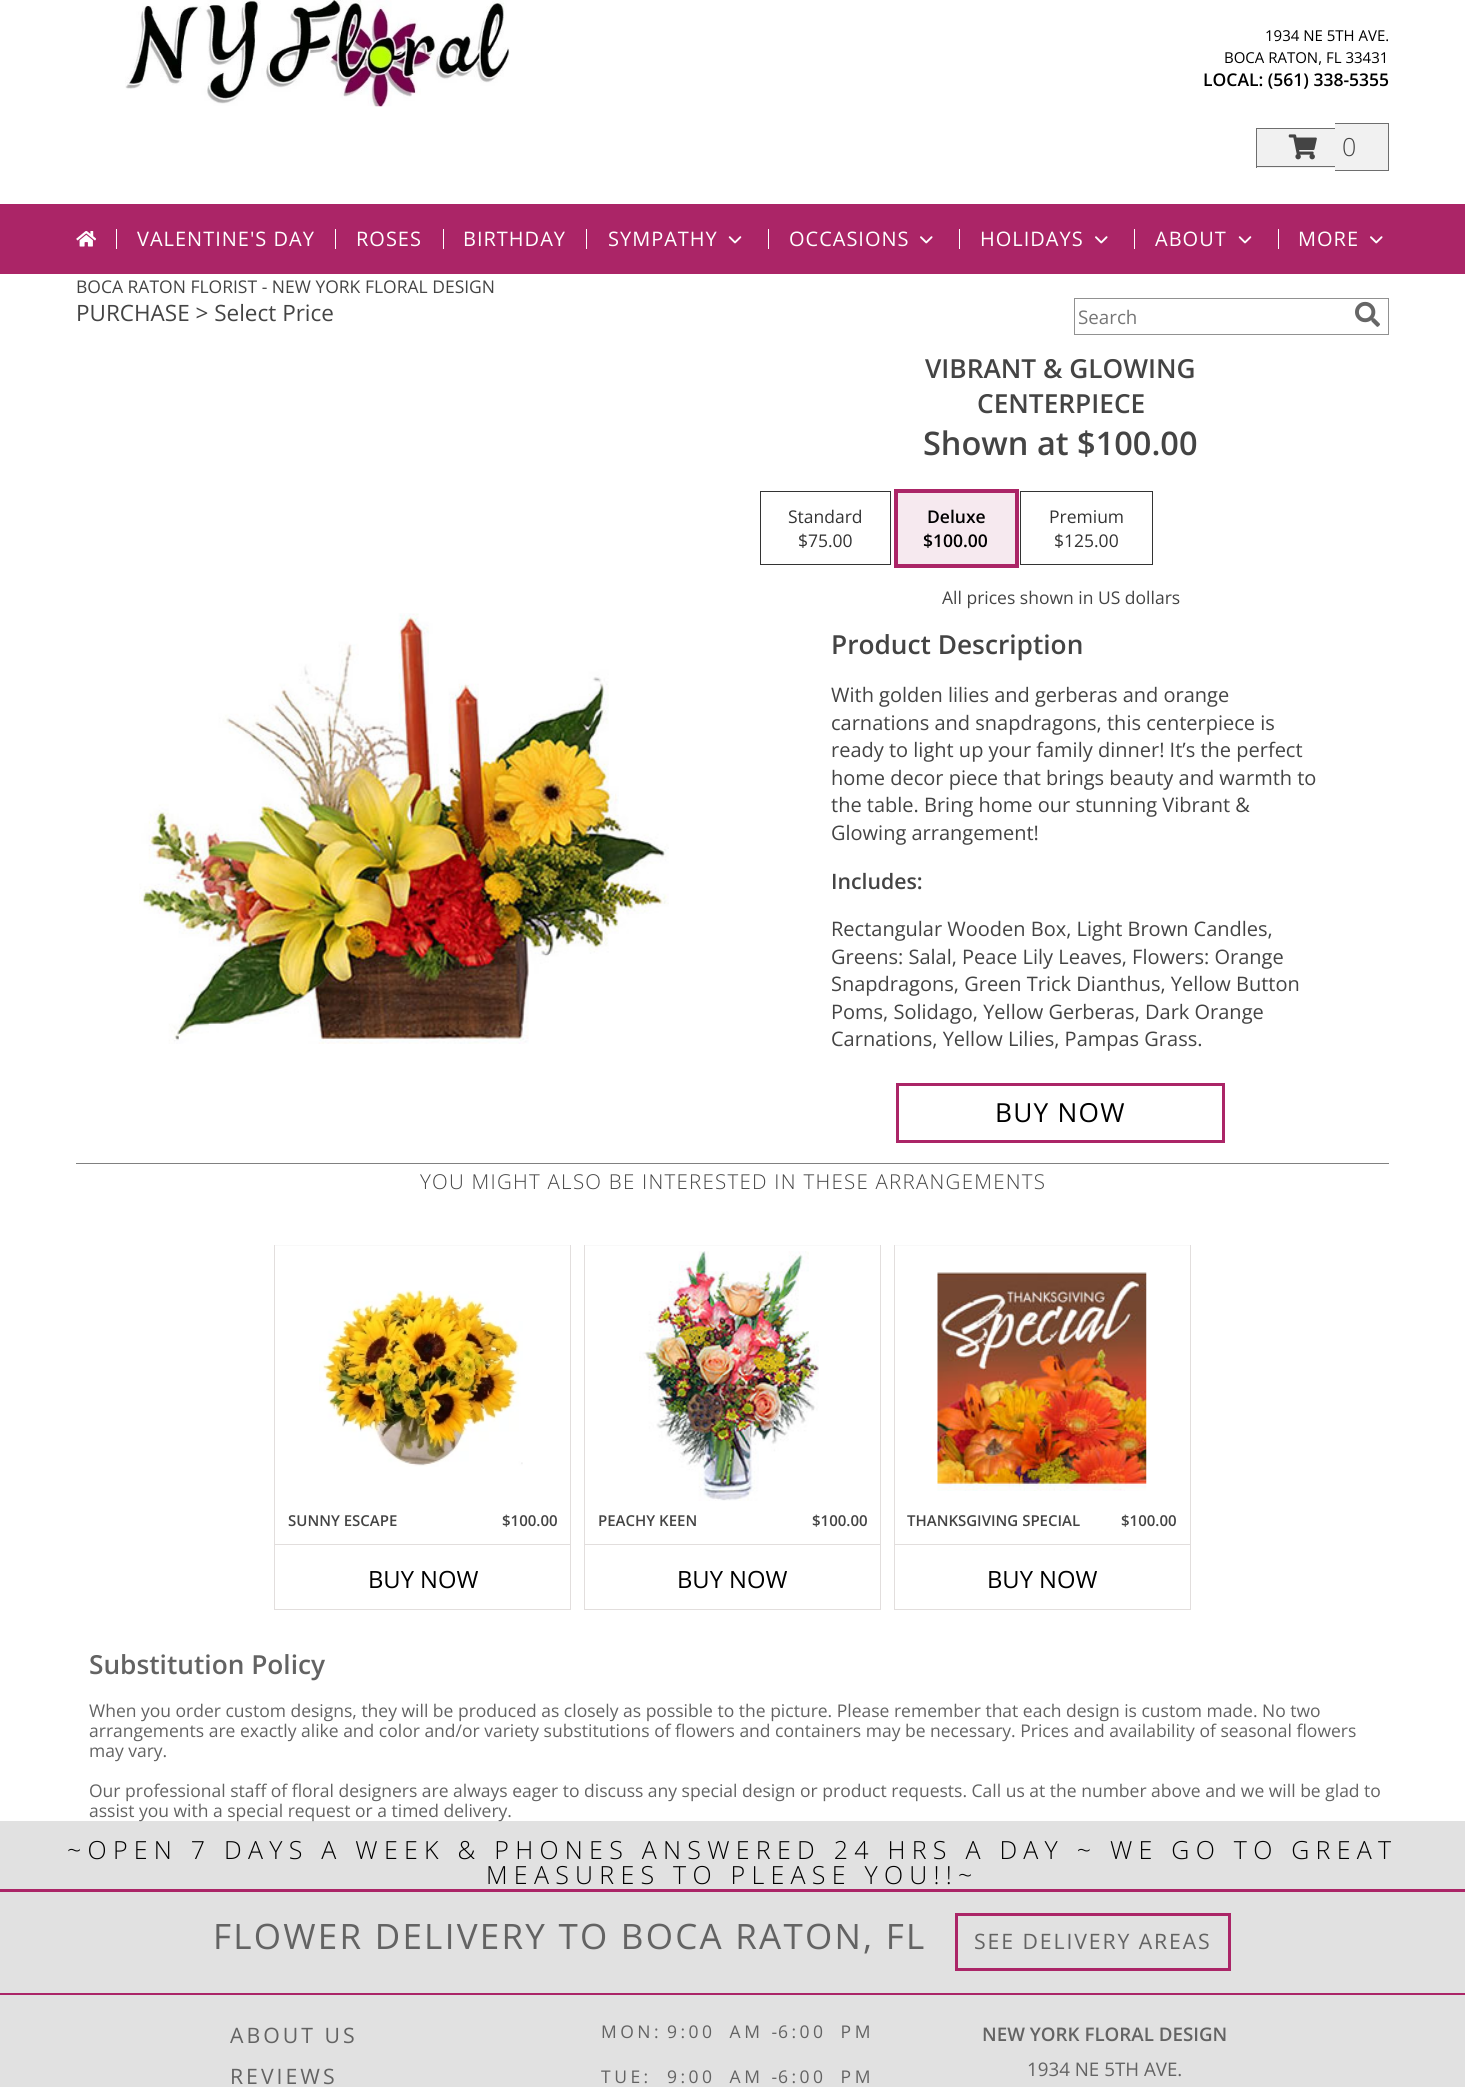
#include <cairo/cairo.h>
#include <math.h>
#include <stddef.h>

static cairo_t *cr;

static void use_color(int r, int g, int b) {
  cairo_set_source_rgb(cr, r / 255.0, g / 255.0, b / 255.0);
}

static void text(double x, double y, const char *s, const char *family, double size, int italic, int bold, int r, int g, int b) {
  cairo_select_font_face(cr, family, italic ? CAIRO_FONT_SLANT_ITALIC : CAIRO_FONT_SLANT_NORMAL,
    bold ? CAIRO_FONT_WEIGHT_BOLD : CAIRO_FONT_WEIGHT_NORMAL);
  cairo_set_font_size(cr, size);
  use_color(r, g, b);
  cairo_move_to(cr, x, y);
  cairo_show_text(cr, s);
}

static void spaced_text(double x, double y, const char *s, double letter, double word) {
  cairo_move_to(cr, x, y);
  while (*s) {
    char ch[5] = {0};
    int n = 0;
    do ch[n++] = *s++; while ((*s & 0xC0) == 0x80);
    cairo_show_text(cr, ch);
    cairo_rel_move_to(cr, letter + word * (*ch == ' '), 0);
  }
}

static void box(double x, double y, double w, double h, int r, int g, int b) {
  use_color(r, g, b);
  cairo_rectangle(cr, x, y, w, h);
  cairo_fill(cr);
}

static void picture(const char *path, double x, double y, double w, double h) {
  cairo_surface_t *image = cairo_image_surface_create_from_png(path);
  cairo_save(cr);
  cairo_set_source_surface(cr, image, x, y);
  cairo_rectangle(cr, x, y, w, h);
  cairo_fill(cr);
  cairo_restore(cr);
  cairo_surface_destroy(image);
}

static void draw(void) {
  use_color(255, 255, 255);
  cairo_paint(cr);
  picture("img_01.png", 125, 0, 385, 107);
  box(1257, 129, 78, 39, 241, 241, 241);
  box(1256, 128, 79, 1, 110, 110, 110);
  box(1256, 166, 79, 1, 110, 110, 110);
  box(1256, 128, 1, 40, 110, 110, 110);
  box(1335, 123, 8, 48, 241, 241, 241);
  box(1335, 123, 54, 1, 110, 110, 110);
  box(1335, 170, 8, 1, 110, 110, 110);
  box(1343, 124, 45, 46, 241, 241, 241);
  box(1388, 123, 1, 48, 110, 110, 110);
  box(1343, 170, 46, 1, 110, 110, 110);
  picture("img_02.png", 1288, 134, 29, 26);
  box(0, 204, 1465, 70, 171, 37, 103);
  picture("img_03.png", 76, 231, 20, 16);
  box(116, 229, 1, 20, 255, 255, 255);
  box(335, 229, 1, 20, 255, 255, 255);
  box(443, 229, 1, 20, 255, 255, 255);
  box(586, 229, 1, 20, 255, 255, 255);
  picture("img_04.png", 728, 236, 14, 8);
  box(768, 229, 1, 20, 255, 255, 255);
  picture("img_05.png", 920, 236, 13, 8);
  box(959, 229, 1, 20, 255, 255, 255);
  picture("img_05.png", 1095, 236, 13, 8);
  box(1134, 229, 1, 20, 255, 255, 255);
  picture("img_04.png", 1238, 236, 14, 8);
  box(1278, 229, 1, 20, 255, 255, 255);
  picture("img_05.png", 1370, 236, 13, 8);
  cairo_rectangle(cr, 1074.5, 298.5, 314, 36);
  use_color(145, 145, 145);
  cairo_set_line_width(cr, 1);
  cairo_stroke(cr);
  picture("img_06.png", 1355, 301, 25, 26);
  picture("img_07.png", 139, 613, 530, 431);
  cairo_rectangle(cr, 760.5, 491.5, 130, 73);
  use_color(51, 51, 51);
  cairo_stroke(cr);
  cairo_rectangle(cr, 896, 491, 121, 75);
  use_color(171, 37, 103);
  cairo_set_line_width(cr, 4);
  cairo_stroke(cr);
  box(898, 493, 117, 71, 246, 233, 239);
  cairo_rectangle(cr, 1020.5, 491.5, 132, 73);
  use_color(51, 51, 51);
  cairo_set_line_width(cr, 1);
  cairo_stroke(cr);
  cairo_rectangle(cr, 897.5, 1084.5, 326, 57);
  use_color(171, 37, 103);
  cairo_set_line_width(cr, 3);
  cairo_stroke(cr);
  box(76, 1163, 1313, 1, 128, 128, 128);
  box(274, 1245, 297, 1, 249, 249, 249);
  box(570, 1245, 1, 365, 226, 222, 221);
  box(274, 1609, 297, 1, 226, 222, 221);
  box(274, 1245, 1, 365, 226, 222, 221);
  picture("img_08.png", 319, 1290, 204, 177);
  box(275, 1544, 295, 1, 226, 222, 221);
  box(584, 1245, 297, 1, 249, 249, 249);
  box(880, 1245, 1, 365, 226, 222, 221);
  box(584, 1609, 297, 1, 226, 222, 221);
  box(584, 1245, 1, 365, 226, 222, 221);
  picture("img_09.png", 639, 1251, 180, 250);
  box(585, 1544, 295, 1, 226, 222, 221);
  box(894, 1245, 297, 1, 249, 249, 249);
  box(1190, 1245, 1, 365, 226, 222, 221);
  box(894, 1609, 297, 1, 226, 222, 221);
  box(894, 1245, 1, 365, 226, 222, 221);
  picture("img_10.png", 937, 1272, 210, 219);
  box(895, 1544, 295, 1, 226, 222, 221);
  box(0, 1821, 1465, 172, 225, 225, 225);
  box(0, 1889, 1465, 3, 171, 37, 103);
  box(0, 1993, 1465, 2, 171, 37, 103);
  cairo_rectangle(cr, 956.5, 1914.5, 273, 55);
  cairo_stroke(cr);
  box(0, 1995, 1465, 92, 225, 225, 225);
  text(1265, 41, "1934 NE 5TH AVE.", "Open Sans", 15, 0, 0, 0, 0, 0);
  text(1224, 63, "BOCA RATON, FL 33431", "Open Sans", 15, 0, 0, 0, 0, 0);
  text(1203, 86, "LOCAL: (561) 338-5355", "Open Sans SemiBold", 17.5, 0, 0, 0, 0, 0);
  text(1342, 156, "0", "Open Sans Light", 25, 0, 0, 68, 68, 68);
  cairo_select_font_face(cr, "Open Sans", CAIRO_FONT_SLANT_NORMAL, CAIRO_FONT_WEIGHT_NORMAL);
  cairo_set_font_size(cr, 20);
  use_color(255, 255, 255);
  spaced_text(137, 246, "VALENTINE'S DAY", 1, 0);
  spaced_text(356, 246, "ROSES", 1, 0);
  spaced_text(463, 246, "BIRTHDAY", 1, 0);
  spaced_text(608, 246, "SYMPATHY", 1, 0);
  spaced_text(789, 246, "OCCASIONS", 1, 0);
  spaced_text(980, 246, "HOLIDAYS", 1, 0);
  spaced_text(1155, 246, "ABOUT", 1, 0);
  spaced_text(1298, 246, "MORE", 1, 0);
  text(76, 293, "BOCA RATON FLORIST - NEW YORK FLORAL DESIGN", "Open Sans", 17.5, 0, 0, 68, 68, 68);
  text(76, 321, "PURCHASE > Select Price", "Open Sans", 22.5, 0, 0, 68, 68, 68);
  text(1078, 324, "Search", "Open Sans", 18.75, 0, 0, 117, 117, 117);
  text(925, 378, "VIBRANT & GLOWING", "Open Sans SemiBold", 26.25, 0, 0, 68, 68, 68);
  text(977, 413, "CENTERPIECE", "Open Sans SemiBold", 26.25, 0, 0, 68, 68, 68);
  text(923, 455, "Shown at $100.00", "Open Sans SemiBold", 32.5, 0, 0, 68, 68, 68);
  text(788, 523, "Standard", "Open Sans", 17.5, 0, 0, 51, 51, 51);
  text(798, 547, "$75.00", "Open Sans", 17.5, 0, 0, 51, 51, 51);
  text(927, 523, "Deluxe", "Open Sans SemiBold", 17.5, 0, 0, 0, 0, 0);
  text(923, 547, "$100.00", "Open Sans SemiBold", 17.5, 0, 0, 0, 0, 0);
  text(1049, 523, "Premium", "Open Sans", 17.5, 0, 0, 51, 51, 51);
  text(1054, 547, "$125.00", "Open Sans", 17.5, 0, 0, 51, 51, 51);
  text(942, 604, "All prices shown in US dollars", "Open Sans", 17.5, 0, 0, 68, 68, 68);
  text(831, 654, "Product Description", "Open Sans SemiBold", 26.25, 0, 0, 68, 68, 68);
  text(831, 702, "With golden lilies and gerberas and orange", "Open Sans", 20, 0, 0, 68, 68, 68);
  text(831, 730, "carnations and snapdragons, this centerpiece is", "Open Sans", 20, 0, 0, 68, 68, 68);
  text(831, 757, "ready to light up your family dinner! It’s the perfect", "Open Sans", 20, 0, 0, 68, 68, 68);
  text(831, 785, "home decor piece that brings beauty and warmth to", "Open Sans", 20, 0, 0, 68, 68, 68);
  text(831, 812, "the table. Bring home our stunning Vibrant &", "Open Sans", 20, 0, 0, 68, 68, 68);
  text(831, 840, "Glowing arrangement!", "Open Sans", 20, 0, 0, 68, 68, 68);
  text(831, 889, "Includes:", "Open Sans SemiBold", 21.25, 0, 0, 68, 68, 68);
  text(831, 936, "Rectangular Wooden Box, Light Brown Candles,", "Open Sans", 20, 0, 0, 68, 68, 68);
  text(831, 964, "Greens: Salal, Peace Lily Leaves, Flowers: Orange", "Open Sans", 20, 0, 0, 68, 68, 68);
  text(831, 991, "Snapdragons, Green Trick Dianthus, Yellow Button", "Open Sans", 20, 0, 0, 68, 68, 68);
  text(831, 1019, "Poms, Solidago, Yellow Gerberas, Dark Orange", "Open Sans", 20, 0, 0, 68, 68, 68);
  text(831, 1046, "Carnations, Yellow Lilies, Pampas Grass.", "Open Sans", 20, 0, 0, 68, 68, 68);
  cairo_set_font_size(cr, 26.25);
  use_color(0, 0, 0);
  spaced_text(995, 1122, "BUY NOW", 1.25, 0);
  cairo_select_font_face(cr, "Open Sans Light", CAIRO_FONT_SLANT_NORMAL, CAIRO_FONT_WEIGHT_NORMAL);
  cairo_set_font_size(cr, 20.5);
  use_color(68, 68, 68);
  spaced_text(420, 1189, "YOU MIGHT ALSO BE INTERESTED IN THESE ARRANGEMENTS", 1.25, 0);
  text(288, 1526, "SUNNY ESCAPE", "Open Sans SemiBold", 15, 0, 0, 68, 68, 68);
  text(502, 1526, "$100.00", "Open Sans SemiBold", 15, 0, 0, 68, 68, 68);
  text(368, 1588, "BUY NOW", "Open Sans", 23.75, 0, 0, 0, 0, 0);
  text(598, 1526, "PEACHY KEEN", "Open Sans SemiBold", 15, 0, 0, 68, 68, 68);
  text(812, 1526, "$100.00", "Open Sans SemiBold", 15, 0, 0, 68, 68, 68);
  text(677, 1588, "BUY NOW", "Open Sans", 23.75, 0, 0, 0, 0, 0);
  text(907, 1526, "THANKSGIVING SPECIAL", "Open Sans SemiBold", 15, 0, 0, 68, 68, 68);
  text(1121, 1526, "$100.00", "Open Sans SemiBold", 15, 0, 0, 68, 68, 68);
  text(987, 1588, "BUY NOW", "Open Sans", 23.75, 0, 0, 0, 0, 0);
  text(89, 1674, "Substitution Policy", "Open Sans SemiBold", 26.25, 0, 0, 99, 99, 99);
  text(89, 1717, "When you order custom designs, they will be produced as closely as possible to the picture. Please remember that each design is custom made. No two", "Open Sans", 17.5, 0, 0, 99, 99, 99);
  text(89, 1737, "arrangements are exactly alike and color and/or variety substitutions of flowers and containers may be necessary. Prices and availability of seasonal flowers", "Open Sans", 17.5, 0, 0, 99, 99, 99);
  text(89, 1757, "may vary.", "Open Sans", 17.5, 0, 0, 99, 99, 99);
  text(89, 1797, "Our professional staff of floral designers are always eager to discuss any special design or product requests. Call us at the number above and we will be glad to", "Open Sans", 17.5, 0, 0, 99, 99, 99);
  text(89, 1817, "assist you with a special request or a timed delivery.", "Open Sans", 17.5, 0, 0, 99, 99, 99);
  cairo_select_font_face(cr, "Open Sans Light", CAIRO_FONT_SLANT_NORMAL, CAIRO_FONT_WEIGHT_NORMAL);
  cairo_set_font_size(cr, 25);
  use_color(0, 0, 0);
  spaced_text(67, 1859, "~OPEN 7 DAYS A WEEK & PHONES ANSWERED 24 HRS A DAY ~ WE GO TO GREAT", 6.25, 0);
  spaced_text(486, 1884, "MEASURES TO PLEASE YOU!!~", 6.25, 0);
  cairo_select_font_face(cr, "Open Sans", CAIRO_FONT_SLANT_NORMAL, CAIRO_FONT_WEIGHT_NORMAL);
  cairo_set_font_size(cr, 35);
  use_color(99, 99, 99);
  spaced_text(213, 1949, "FLOWER DELIVERY TO BOCA RATON, FL", 2.25, 0);
  cairo_set_font_size(cr, 21.25);
  spaced_text(974, 1949, "SEE DELIVERY AREAS", 1.9, 0);
  spaced_text(230, 2043, "ABOUT US", 3, 0);
  spaced_text(230, 2084, "REVIEWS", 3, 0);
  cairo_set_font_size(cr, 17.5);
  spaced_text(601, 2038, "MON:", 3.5, 0);
  spaced_text(667, 2038, "9:00 AM -", 3.5, 0);
  spaced_text(778, 2038, "6:00 PM", 3.5, 0);
  spaced_text(601, 2083, "TUE:", 3.5, 0);
  spaced_text(667, 2083, "9:00 AM -", 3.5, 0);
  spaced_text(778, 2083, "6:00 PM", 3.5, 0);
  text(982, 2041, "NEW YORK FLORAL DESIGN", "Open Sans SemiBold", 18.75, 0, 0, 99, 99, 99);
  text(1027, 2076, "1934 NE 5TH AVE.", "Open Sans", 18.75, 0, 0, 99, 99, 99);
}

int main(void) {
  cairo_surface_t *surface = cairo_image_surface_create(CAIRO_FORMAT_RGB24, 1465, 2087);
  cr = cairo_create(surface);
  cairo_font_options_t *options = cairo_font_options_create();
  cairo_font_options_set_hint_metrics(options, CAIRO_HINT_METRICS_OFF);
  cairo_font_options_set_hint_style(options, CAIRO_HINT_STYLE_NONE);
  cairo_set_font_options(cr, options);
  cairo_set_miter_limit(cr, 4);
  draw();
  cairo_surface_write_to_png(surface, "out.png");
  cairo_font_options_destroy(options);
  cairo_destroy(cr);
  cairo_surface_destroy(surface);
  return 0;
}
